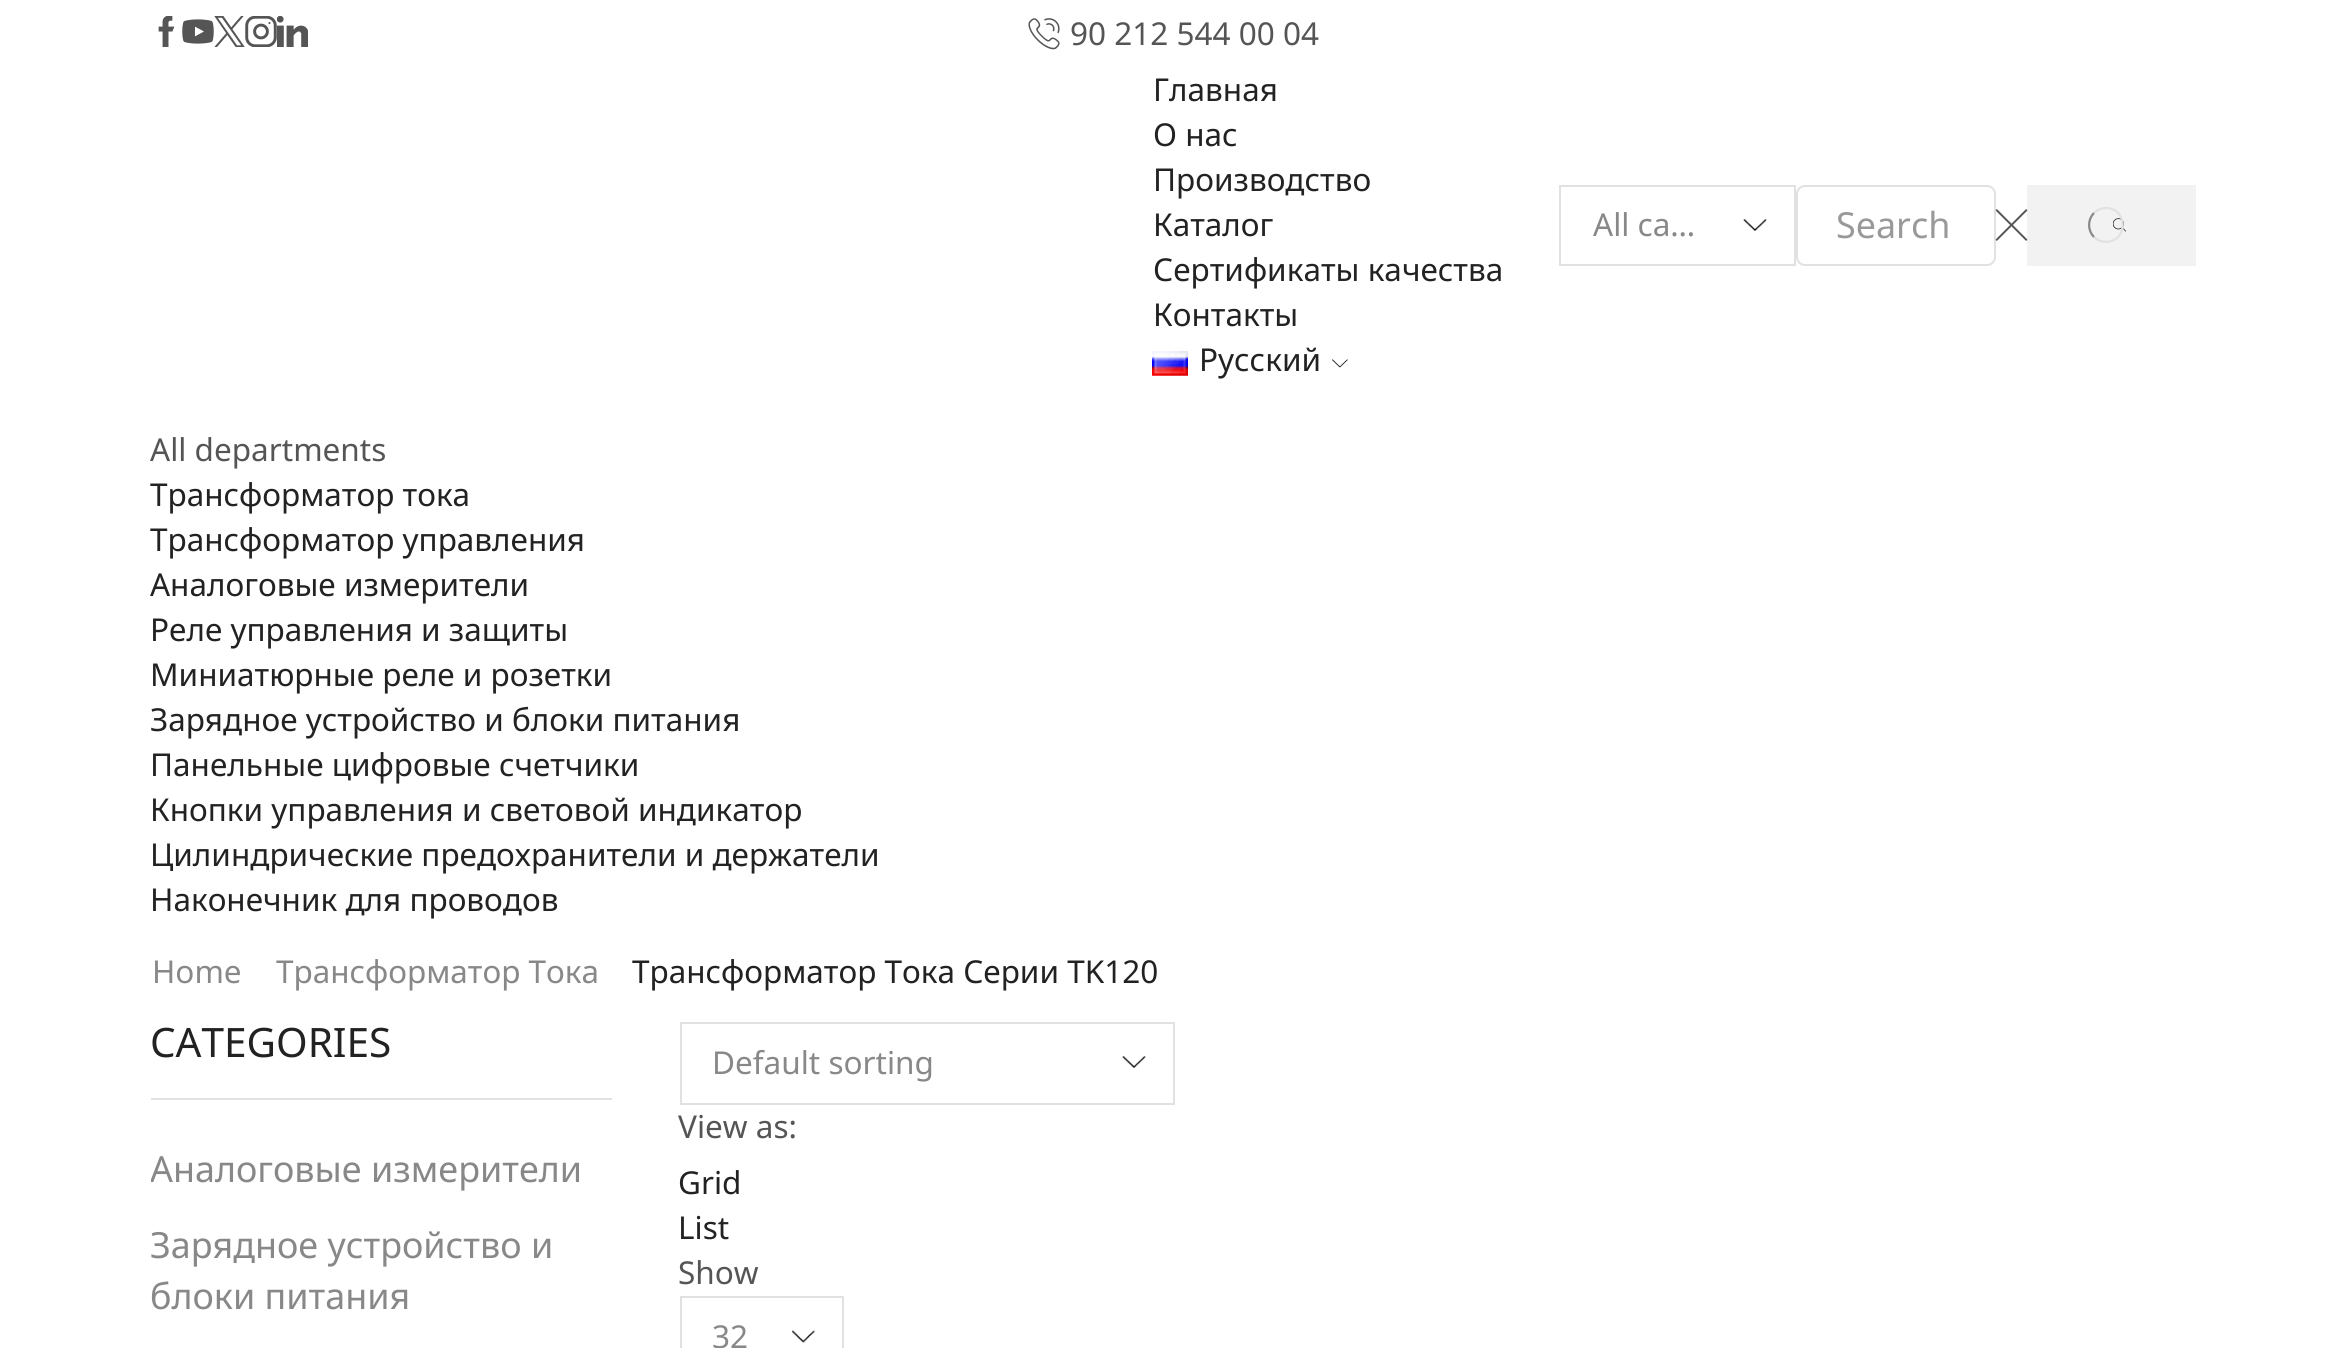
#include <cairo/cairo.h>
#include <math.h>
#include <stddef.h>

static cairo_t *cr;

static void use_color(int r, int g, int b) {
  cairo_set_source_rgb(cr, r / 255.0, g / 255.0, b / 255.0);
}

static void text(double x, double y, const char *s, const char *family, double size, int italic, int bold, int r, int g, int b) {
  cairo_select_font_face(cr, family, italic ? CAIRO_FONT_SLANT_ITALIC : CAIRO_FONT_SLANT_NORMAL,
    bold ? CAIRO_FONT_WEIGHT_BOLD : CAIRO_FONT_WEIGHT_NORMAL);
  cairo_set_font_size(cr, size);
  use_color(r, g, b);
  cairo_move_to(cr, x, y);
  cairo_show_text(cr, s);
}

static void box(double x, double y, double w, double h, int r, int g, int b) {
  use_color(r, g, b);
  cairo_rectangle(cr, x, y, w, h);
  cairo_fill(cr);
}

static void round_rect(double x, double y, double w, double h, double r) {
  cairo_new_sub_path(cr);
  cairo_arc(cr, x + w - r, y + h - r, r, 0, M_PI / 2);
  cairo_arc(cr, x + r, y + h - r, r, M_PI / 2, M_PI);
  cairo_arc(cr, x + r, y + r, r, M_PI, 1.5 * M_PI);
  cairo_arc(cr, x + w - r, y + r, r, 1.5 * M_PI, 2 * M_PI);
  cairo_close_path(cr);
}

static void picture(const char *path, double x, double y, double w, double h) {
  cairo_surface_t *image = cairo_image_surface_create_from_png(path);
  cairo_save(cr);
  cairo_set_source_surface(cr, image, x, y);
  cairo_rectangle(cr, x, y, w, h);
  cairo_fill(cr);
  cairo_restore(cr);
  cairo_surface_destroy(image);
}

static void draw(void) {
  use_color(255, 255, 255);
  cairo_paint(cr);
  picture("img_01.png", 158, 16, 17, 31);
  picture("img_02.png", 182, 19, 32, 25);
  picture("img_03.png", 214, 16, 31, 31);
  picture("img_04.png", 245, 16, 32, 31);
  picture("img_05.png", 277, 16, 31, 31);
  picture("img_06.png", 1028, 18, 32, 32);
  picture("img_07.png", 1152, 351, 36, 25);
  picture("img_08.png", 1332, 359, 16, 9);
  picture("img_09.png", 1743, 219, 24, 12);
  cairo_rectangle(cr, 1560, 186, 235, 79);
  use_color(225, 225, 225);
  cairo_stroke(cr);
  round_rect(1797, 186, 198, 79, 8);
  cairo_stroke(cr);
  box(2027, 185, 169, 81, 242, 242, 242);
  picture("img_10.png", 1995, 209, 33, 32);
  picture("img_11.png", 2113, 218, 13, 14);
  cairo_new_path(cr);
  cairo_move_to(cr, 2094, 213);
  cairo_curve_to(cr, 2097, 210, 2101.5, 208, 2106, 208);
  cairo_curve_to(cr, 2126, 208, 2129, 237.5, 2109.5, 241.5);
  cairo_curve_to(cr, 2104, 242.5, 2098, 241, 2094, 237);
  use_color(225, 225, 225);
  cairo_set_line_width(cr, 2.2);
  cairo_stroke(cr);
  cairo_new_path(cr);
  cairo_move_to(cr, 2094, 237);
  cairo_curve_to(cr, 2087.5, 230.5, 2087.5, 219.5, 2094, 213);
  use_color(136, 136, 136);
  cairo_stroke(cr);
  box(151, 1098, 461, 2, 225, 225, 225);
  picture("img_12.png", 1122, 1056, 24, 12);
  cairo_rectangle(cr, 681, 1023, 493, 81);
  cairo_set_line_width(cr, 2);
  cairo_stroke(cr);
  picture("img_13.png", 792, 1330, 23, 13);
  cairo_rectangle(cr, 681, 1297, 162, 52);
  cairo_stroke(cr);
  text(1070, 45, "90 212 544 00 04", "Noto Sans", 31.5, 0, 0, 85, 85, 85);
  text(1153, 101, "Главная", "Noto Sans", 31.5, 0, 0, 34, 34, 34);
  text(1153, 146, "О нас", "Noto Sans", 31.5, 0, 0, 34, 34, 34);
  text(1153, 191, "Производство", "Noto Sans", 31.5, 0, 0, 34, 34, 34);
  text(1153, 236, "Каталог", "Noto Sans", 31.5, 0, 0, 34, 34, 34);
  text(1153, 281, "Сертификаты качества", "Noto Sans", 31.5, 0, 0, 34, 34, 34);
  text(1153, 326, "Контакты", "Noto Sans", 31.5, 0, 0, 34, 34, 34);
  text(1199, 371, "Русский", "Noto Sans", 31.5, 0, 0, 34, 34, 34);
  text(1593, 236, "All ca…", "Noto Sans", 31.5, 0, 0, 136, 136, 136);
  text(1836, 238, "Search", "Noto Sans", 35.9, 0, 0, 153, 153, 153);
  text(150, 461, "All departments", "Noto Sans", 31.5, 0, 0, 85, 85, 85);
  text(150, 506, "Трансформатор тока", "Noto Sans", 31.5, 0, 0, 34, 34, 34);
  text(150, 551, "Трансформатор управления", "Noto Sans", 31.5, 0, 0, 34, 34, 34);
  text(150, 596, "Аналоговые измерители", "Noto Sans", 31.5, 0, 0, 34, 34, 34);
  text(150, 641, "Реле управления и защиты", "Noto Sans", 31.5, 0, 0, 34, 34, 34);
  text(150, 686, "Миниатюрные реле и розетки", "Noto Sans", 31.5, 0, 0, 34, 34, 34);
  text(150, 731, "Зарядное устройство и блоки питания", "Noto Sans", 31.5, 0, 0, 34, 34, 34);
  text(150, 776, "Панельные цифровые счетчики", "Noto Sans", 31.5, 0, 0, 34, 34, 34);
  text(150, 821, "Кнопки управления и световой индикатор", "Noto Sans", 31.5, 0, 0, 34, 34, 34);
  text(150, 866, "Цилиндрические предохранители и держатели", "Noto Sans", 31.5, 0, 0, 34, 34, 34);
  text(150, 911, "Наконечник для проводов", "Noto Sans", 31.5, 0, 0, 34, 34, 34);
  text(152, 983, "Home", "Noto Sans", 31.5, 0, 0, 136, 136, 136);
  text(276, 983, "Трансформатор Тока", "Noto Sans", 31.5, 0, 0, 136, 136, 136);
  text(632, 983, "Трансформатор Тока Серии TK120", "Noto Sans", 31.5, 0, 0, 34, 34, 34);
  text(150, 1057, "CATEGORIES", "Noto Sans", 40.5, 0, 0, 34, 34, 34);
  cairo_save(cr);
  cairo_rectangle(cr, 151, 1143, 461, 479);
  cairo_clip(cr);
  text(150, 1182, "Аналоговые измерители", "Noto Sans", 35.9, 0, 0, 136, 136, 136);
  cairo_restore(cr);
  text(150, 1258, "Зарядное устройство и", "Noto Sans", 35.9, 0, 0, 136, 136, 136);
  text(150, 1309, "блоки питания", "Noto Sans", 35.9, 0, 0, 136, 136, 136);
  text(712, 1074, "Default sorting", "Noto Sans", 31.5, 0, 0, 136, 136, 136);
  text(678, 1138, "View as:", "Noto Sans", 31.5, 0, 0, 85, 85, 85);
  text(678, 1194, "Grid", "Noto Sans", 31.5, 0, 0, 34, 34, 34);
  text(678, 1239, "List", "Noto Sans", 31.5, 0, 0, 34, 34, 34);
  text(678, 1284, "Show", "Noto Sans", 31.5, 0, 0, 85, 85, 85);
  text(712, 1348, "32", "Noto Sans", 31.5, 0, 0, 136, 136, 136);
}

int main(void) {
  cairo_surface_t *surface = cairo_image_surface_create(CAIRO_FORMAT_RGB24, 2346, 1348);
  cr = cairo_create(surface);
  cairo_font_options_t *options = cairo_font_options_create();
  cairo_font_options_set_hint_metrics(options, CAIRO_HINT_METRICS_OFF);
  cairo_font_options_set_hint_style(options, CAIRO_HINT_STYLE_NONE);
  cairo_set_font_options(cr, options);
  cairo_set_miter_limit(cr, 4);
  draw();
  cairo_surface_write_to_png(surface, "out.png");
  cairo_font_options_destroy(options);
  cairo_destroy(cr);
  cairo_surface_destroy(surface);
  return 0;
}
